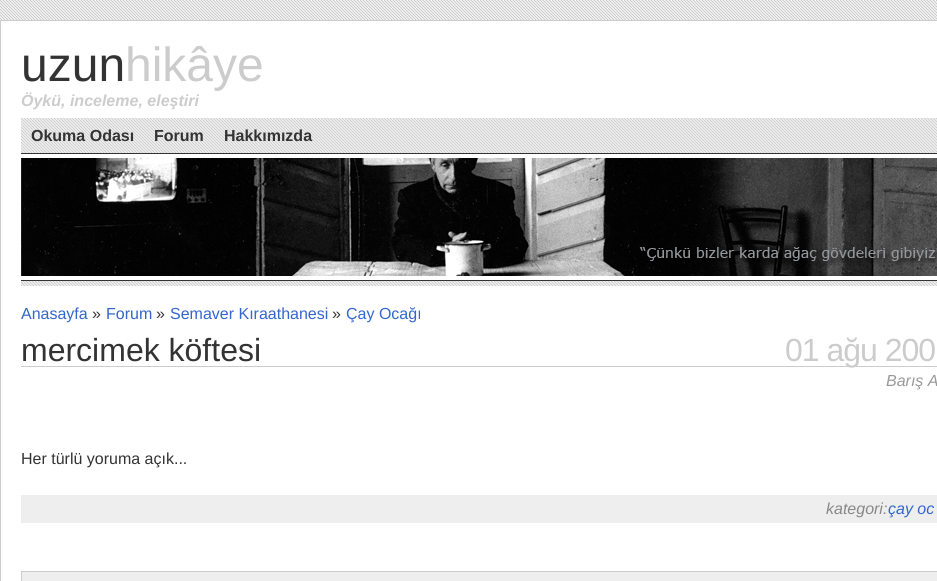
#include <cairo/cairo.h>
#include <math.h>
#include <stddef.h>

static cairo_t *cr;

static void use_color(int r, int g, int b) {
  cairo_set_source_rgb(cr, r / 255.0, g / 255.0, b / 255.0);
}

static void text(double x, double y, const char *s, const char *family, double size, int italic, int bold, int r, int g, int b) {
  cairo_select_font_face(cr, family, italic ? CAIRO_FONT_SLANT_ITALIC : CAIRO_FONT_SLANT_NORMAL,
    bold ? CAIRO_FONT_WEIGHT_BOLD : CAIRO_FONT_WEIGHT_NORMAL);
  cairo_set_font_size(cr, size);
  use_color(r, g, b);
  cairo_move_to(cr, x, y);
  cairo_show_text(cr, s);
}

static void spaced_text(double x, double y, const char *s, double letter, double word) {
  cairo_move_to(cr, x, y);
  while (*s) {
    char ch[5] = {0};
    int n = 0;
    do ch[n++] = *s++; while ((*s & 0xC0) == 0x80);
    cairo_show_text(cr, ch);
    cairo_rel_move_to(cr, letter + word * (*ch == ' '), 0);
  }
}

static void box(double x, double y, double w, double h, int r, int g, int b) {
  use_color(r, g, b);
  cairo_rectangle(cr, x, y, w, h);
  cairo_fill(cr);
}

static void picture(const char *path, double x, double y, double w, double h) {
  cairo_surface_t *image = cairo_image_surface_create_from_png(path);
  cairo_save(cr);
  cairo_set_source_surface(cr, image, x, y);
  cairo_rectangle(cr, x, y, w, h);
  cairo_fill(cr);
  cairo_restore(cr);
  cairo_surface_destroy(image);
}

static void draw(void) {
  use_color(255, 255, 255);
  cairo_paint(cr);
  picture("img_01.png", 0, 0, 937, 20);
  cairo_rectangle(cr, 0.5, 20.5, 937, 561);
  use_color(204, 204, 204);
  cairo_set_line_width(cr, 1);
  cairo_stroke(cr);
  picture("img_02.png", 21, 118, 916, 35);
  box(21, 153, 916, 1, 51, 51, 51);
  picture("img_03.png", 21, 158, 916, 118);
  picture("img_04.png", 21, 281, 916, 5);
  box(21, 280, 916, 1, 51, 51, 51);
  box(21, 366, 916, 1, 204, 204, 204);
  box(21, 495, 916, 28, 238, 238, 238);
  box(22, 572, 915, 9, 238, 238, 238);
  box(21, 571, 916, 1, 204, 204, 204);
  box(21, 571, 1, 10, 204, 204, 204);
  text(21, 81, "uzun", "Liberation Sans", 48, 0, 0, 51, 51, 51);
  text(125, 81, "hikâye", "Liberation Sans", 48, 0, 0, 204, 204, 204);
  text(21, 106, "Öykü, inceleme, eleştiri", "Liberation Sans", 16, 1, 1, 204, 204, 204);
  text(31, 141, "Okuma Odası", "Liberation Sans", 16, 0, 1, 51, 51, 51);
  text(154, 141, "Forum", "Liberation Sans", 16, 0, 1, 51, 51, 51);
  text(224, 141, "Hakkımızda", "Liberation Sans", 16, 0, 1, 51, 51, 51);
  text(21, 319, "Anasayfa", "Liberation Sans", 16, 0, 0, 51, 102, 204);
  text(92, 319, "»", "Liberation Sans", 16, 0, 0, 51, 51, 51);
  text(106, 319, "Forum", "Liberation Sans", 16, 0, 0, 51, 102, 204);
  text(156, 319, "»", "Liberation Sans", 16, 0, 0, 51, 51, 51);
  text(170, 319, "Semaver Kıraathanesi", "Liberation Sans", 16, 0, 0, 51, 102, 204);
  text(332, 319, "»", "Liberation Sans", 16, 0, 0, 51, 51, 51);
  text(346, 319, "Çay Ocağı", "Liberation Sans", 16, 0, 0, 51, 102, 204);
  text(21, 361, "mercimek köftesi", "Liberation Sans", 32, 0, 0, 51, 51, 51);
  use_color(204, 204, 204);
  spaced_text(785, 361, "01 ağu 200", -1, 0);
  text(886, 386, "Barış A", "Liberation Sans", 16, 1, 0, 153, 153, 153);
  text(21, 464, "Her türlü yoruma açık...", "Liberation Sans", 16, 0, 0, 51, 51, 51);
  text(826, 514, "kategori:", "Liberation Sans", 16, 1, 0, 136, 136, 136);
  text(888, 514, "çay oc", "Liberation Sans", 16, 1, 0, 51, 102, 204);
}

int main(void) {
  cairo_surface_t *surface = cairo_image_surface_create(CAIRO_FORMAT_RGB24, 937, 581);
  cr = cairo_create(surface);
  cairo_font_options_t *options = cairo_font_options_create();
  cairo_font_options_set_hint_metrics(options, CAIRO_HINT_METRICS_OFF);
  cairo_font_options_set_hint_style(options, CAIRO_HINT_STYLE_NONE);
  cairo_set_font_options(cr, options);
  cairo_set_miter_limit(cr, 4);
  draw();
  cairo_surface_write_to_png(surface, "out.png");
  cairo_font_options_destroy(options);
  cairo_destroy(cr);
  cairo_surface_destroy(surface);
  return 0;
}
